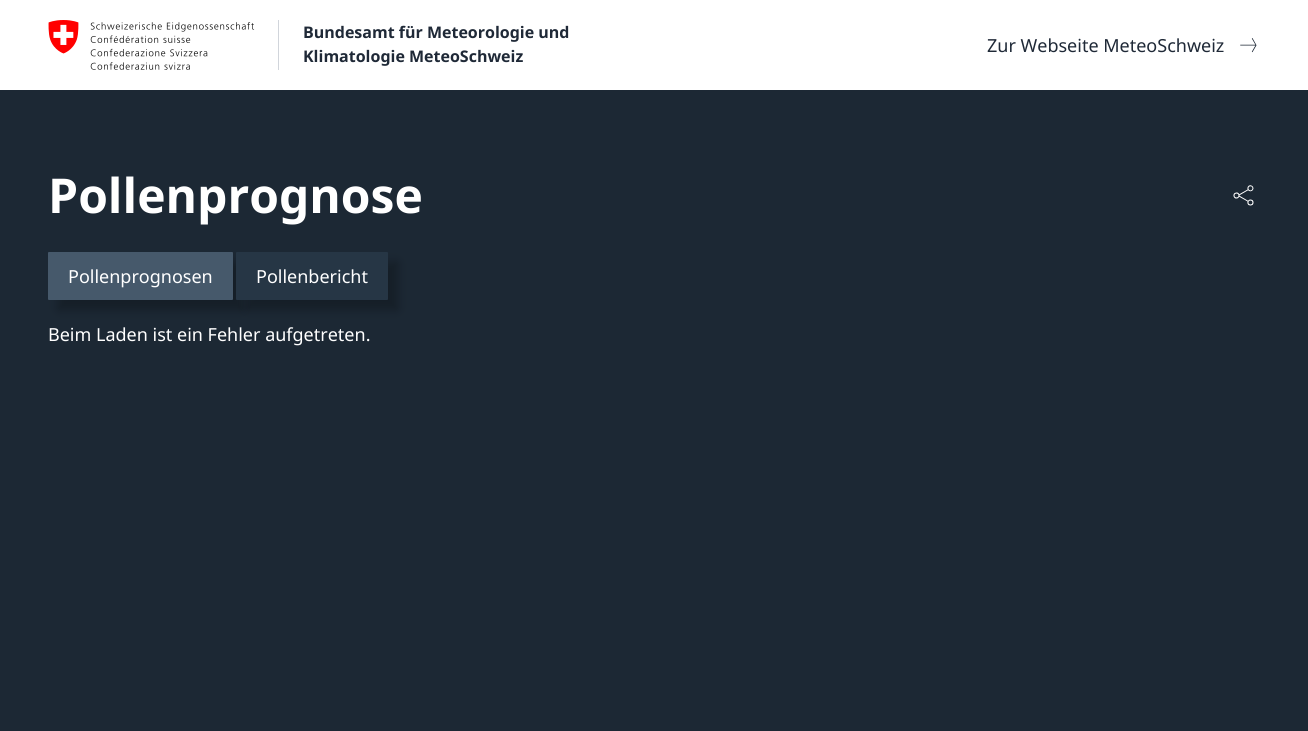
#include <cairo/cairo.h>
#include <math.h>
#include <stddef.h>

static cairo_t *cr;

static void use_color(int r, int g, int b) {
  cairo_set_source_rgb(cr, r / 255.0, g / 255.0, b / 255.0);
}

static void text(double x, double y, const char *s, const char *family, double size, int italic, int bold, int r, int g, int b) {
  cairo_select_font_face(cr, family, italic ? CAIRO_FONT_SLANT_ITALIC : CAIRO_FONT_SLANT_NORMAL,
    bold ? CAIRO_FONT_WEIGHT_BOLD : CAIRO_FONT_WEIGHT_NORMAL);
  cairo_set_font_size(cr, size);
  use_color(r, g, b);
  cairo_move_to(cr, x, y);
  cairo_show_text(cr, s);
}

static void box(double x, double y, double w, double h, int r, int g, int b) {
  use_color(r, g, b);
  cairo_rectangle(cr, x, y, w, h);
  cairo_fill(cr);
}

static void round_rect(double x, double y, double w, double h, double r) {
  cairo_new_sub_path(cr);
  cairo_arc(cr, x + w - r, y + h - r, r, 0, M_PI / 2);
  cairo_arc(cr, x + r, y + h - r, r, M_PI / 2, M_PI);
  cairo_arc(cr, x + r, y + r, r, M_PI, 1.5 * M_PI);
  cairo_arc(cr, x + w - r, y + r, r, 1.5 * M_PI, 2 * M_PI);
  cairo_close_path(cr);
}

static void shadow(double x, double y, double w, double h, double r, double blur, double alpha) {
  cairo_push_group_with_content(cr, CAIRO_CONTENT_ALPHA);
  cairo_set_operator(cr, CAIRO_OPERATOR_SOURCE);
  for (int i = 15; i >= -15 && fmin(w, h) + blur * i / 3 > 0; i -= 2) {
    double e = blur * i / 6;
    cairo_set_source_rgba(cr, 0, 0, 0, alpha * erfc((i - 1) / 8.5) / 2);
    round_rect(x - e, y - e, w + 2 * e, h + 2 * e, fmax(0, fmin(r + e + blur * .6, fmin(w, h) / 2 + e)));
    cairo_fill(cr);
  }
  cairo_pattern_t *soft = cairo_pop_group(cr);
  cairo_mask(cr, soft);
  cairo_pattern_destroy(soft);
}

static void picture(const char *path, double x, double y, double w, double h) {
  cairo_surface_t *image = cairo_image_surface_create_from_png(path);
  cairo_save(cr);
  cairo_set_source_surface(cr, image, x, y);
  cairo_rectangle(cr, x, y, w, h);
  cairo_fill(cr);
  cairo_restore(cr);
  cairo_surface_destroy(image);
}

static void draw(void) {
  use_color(28, 40, 52);
  cairo_paint(cr);
  box(0, 0, 1308, 90, 255, 255, 255);
  picture("img_01.png", 48, 20, 31, 34);
  picture("img_02.png", 90, 22, 165, 48);
  box(278, 20, 1, 50, 209, 213, 219);
  picture("img_03.png", 1240, 38, 17, 15);
  picture("img_04.png", 1233, 185, 21, 21);
  use_color(0, 0, 0);
  shadow(58, 262, 185, 48, 1, 5, 0.25);
  use_color(70, 89, 107);
  round_rect(48, 252, 185, 48, 1);
  cairo_fill(cr);
  use_color(0, 0, 0);
  shadow(246, 262, 152, 48, 1, 5, 0.25);
  use_color(38, 54, 69);
  round_rect(236, 252, 152, 48, 1);
  cairo_fill(cr);
  text(303, 38, "Bundesamt für Meteorologie und", "Noto Sans", 16, 0, 1, 31, 41, 55);
  text(303, 62, "Klimatologie MeteoSchweiz", "Noto Sans", 16, 0, 1, 31, 41, 55);
  text(987, 52, "Zur Webseite MeteoSchweiz", "Noto Sans", 18, 0, 0, 31, 41, 55);
  text(48, 213, "Pollenprognose", "Noto Sans", 48, 0, 1, 255, 255, 255);
  text(68, 283, "Pollenprognosen", "Noto Sans", 18, 0, 0, 255, 255, 255);
  text(256, 283, "Pollenbericht", "Noto Sans", 18, 0, 0, 255, 255, 255);
  text(48, 341, "Beim Laden ist ein Fehler aufgetreten.", "Noto Sans", 18, 0, 0, 255, 255, 255);
}

int main(void) {
  cairo_surface_t *surface = cairo_image_surface_create(CAIRO_FORMAT_RGB24, 1308, 731);
  cr = cairo_create(surface);
  cairo_font_options_t *options = cairo_font_options_create();
  cairo_font_options_set_hint_metrics(options, CAIRO_HINT_METRICS_OFF);
  cairo_font_options_set_hint_style(options, CAIRO_HINT_STYLE_NONE);
  cairo_set_font_options(cr, options);
  cairo_set_miter_limit(cr, 4);
  draw();
  cairo_surface_write_to_png(surface, "out.png");
  cairo_font_options_destroy(options);
  cairo_destroy(cr);
  cairo_surface_destroy(surface);
  return 0;
}
